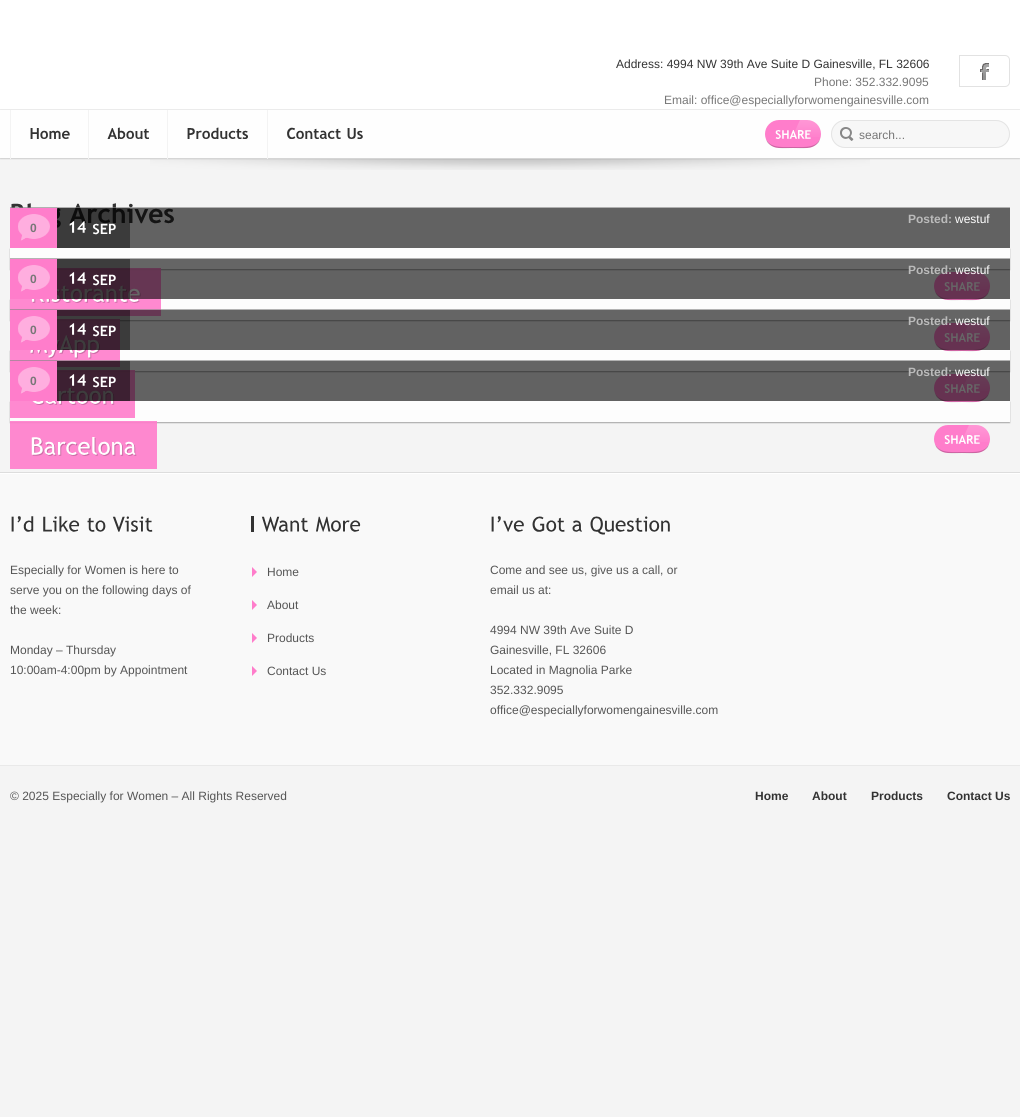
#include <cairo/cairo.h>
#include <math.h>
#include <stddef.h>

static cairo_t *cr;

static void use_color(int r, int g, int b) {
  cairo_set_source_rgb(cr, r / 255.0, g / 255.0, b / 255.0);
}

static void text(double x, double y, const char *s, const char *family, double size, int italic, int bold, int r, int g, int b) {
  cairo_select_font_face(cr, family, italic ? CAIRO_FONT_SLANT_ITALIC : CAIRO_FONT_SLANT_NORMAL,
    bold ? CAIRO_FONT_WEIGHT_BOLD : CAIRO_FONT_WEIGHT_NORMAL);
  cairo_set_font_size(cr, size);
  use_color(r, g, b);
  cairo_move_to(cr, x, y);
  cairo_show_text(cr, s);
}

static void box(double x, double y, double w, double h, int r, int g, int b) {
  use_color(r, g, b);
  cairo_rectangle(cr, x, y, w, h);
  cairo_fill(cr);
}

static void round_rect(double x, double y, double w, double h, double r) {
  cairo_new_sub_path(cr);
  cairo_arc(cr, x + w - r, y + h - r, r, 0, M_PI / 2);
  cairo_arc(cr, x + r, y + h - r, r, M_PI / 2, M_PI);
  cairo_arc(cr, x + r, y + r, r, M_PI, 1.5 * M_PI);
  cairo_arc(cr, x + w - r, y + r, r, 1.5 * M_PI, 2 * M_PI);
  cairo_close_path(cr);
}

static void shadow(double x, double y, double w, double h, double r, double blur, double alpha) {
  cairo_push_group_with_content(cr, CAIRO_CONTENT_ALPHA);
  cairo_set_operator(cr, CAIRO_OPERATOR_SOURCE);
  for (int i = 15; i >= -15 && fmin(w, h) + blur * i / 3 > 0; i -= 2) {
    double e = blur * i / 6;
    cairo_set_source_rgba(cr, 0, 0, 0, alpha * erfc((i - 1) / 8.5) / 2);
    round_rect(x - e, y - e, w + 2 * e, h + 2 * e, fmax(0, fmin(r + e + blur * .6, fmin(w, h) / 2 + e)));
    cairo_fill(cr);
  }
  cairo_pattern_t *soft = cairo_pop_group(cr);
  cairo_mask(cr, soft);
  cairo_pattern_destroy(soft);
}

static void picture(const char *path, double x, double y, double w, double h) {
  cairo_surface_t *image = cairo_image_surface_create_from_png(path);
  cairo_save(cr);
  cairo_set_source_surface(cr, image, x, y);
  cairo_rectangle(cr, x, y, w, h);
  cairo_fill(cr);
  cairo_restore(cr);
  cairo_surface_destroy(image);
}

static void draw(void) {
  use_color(244, 244, 244);
  cairo_paint(cr);
  box(0, 0, 1020, 109, 255, 255, 255);
  cairo_new_path(cr);
  cairo_move_to(cr, 959.5, 55.5);
  cairo_line_to(cr, 1005, 55.5);
  cairo_curve_to(cr, 1007.5, 55.5, 1009.5, 57.5, 1009.5, 60);
  cairo_line_to(cr, 1009.5, 82);
  cairo_curve_to(cr, 1009.5, 84.5, 1007.5, 86.5, 1005, 86.5);
  cairo_line_to(cr, 959.5, 86.5);
  cairo_close_path(cr);
  use_color(226, 226, 226);
  cairo_set_line_width(cr, 1);
  cairo_stroke(cr);
  picture("img_01.png", 980, 63, 9, 17);
  use_color(0, 0, 0);
  shadow(0, 110, 1020, 49, 0, 0.5, 0.15);
  box(0, 110, 1020, 48, 254, 254, 254);
  box(10, 110, 1, 49, 243, 243, 243);
  box(88, 110, 1, 49, 243, 243, 243);
  picture("img_02.png", 30, 128, 40, 11);
  box(167, 110, 1, 49, 243, 243, 243);
  picture("img_03.png", 107, 127, 42, 12);
  box(267, 110, 1, 49, 243, 243, 243);
  picture("img_04.png", 187, 127, 61, 12);
  picture("img_05.png", 287, 127, 54, 12);
  picture("img_06.png", 347, 128, 16, 11);
  use_color(255, 125, 203);
  round_rect(765, 120, 56, 28, 14);
  cairo_fill(cr);
  picture("img_07.png", 793, 120, 28, 17);
  cairo_set_source_rgba(cr, 0, 0, 0, 0.2);
  cairo_new_path(cr);
  cairo_move_to(cr, 765, 134);
  cairo_curve_to(cr, 765, 136, 766, 139, 767, 142);
  cairo_curve_to(cr, 773, 150, 784, 148, 793, 148);
  cairo_curve_to(cr, 802, 148, 813, 150, 819, 142);
  cairo_curve_to(cr, 820, 139, 821, 136, 821, 134);
  cairo_curve_to(cr, 820, 149, 804, 147, 793, 147);
  cairo_curve_to(cr, 782, 147, 766, 149, 765, 134);
  cairo_close_path(cr);
  cairo_fill(cr);
  picture("img_08.png", 775, 130, 36, 9);
  use_color(247, 247, 247);
  round_rect(831, 120, 179, 28, 14);
  cairo_fill(cr);
  picture("img_09.png", 840, 127, 14, 14);
  round_rect(831.5, 120.5, 178, 27, 13.5);
  use_color(228, 228, 228);
  cairo_stroke(cr);
  picture("img_10.png", 150, 159, 720, 11);
  picture("img_11.png", 11, 203, 50, 25);
  picture("img_12.png", 69, 203, 105, 21);
  use_color(0, 0, 0);
  shadow(10, 249, 1000, 21, 0, 0.5, 0.3);
  cairo_set_source_rgba(cr, 0.51, 0.51, 0.51, 0.6);
  cairo_rectangle(cr, 10, 207, 1000, 1);
  cairo_fill(cr);
  cairo_set_source_rgba(cr, 0, 0, 0, 0.6);
  cairo_rectangle(cr, 57, 208, 953, 40);
  cairo_fill(cr);
  cairo_set_source_rgba(cr, 0, 0, 0, 0.4);
  cairo_rectangle(cr, 57, 208, 73, 40);
  cairo_fill(cr);
  picture("img_13.png", 69, 221, 17, 12);
  picture("img_14.png", 93, 223, 23, 12);
  box(10, 208, 47, 40, 255, 125, 203);
  picture("img_15.png", 18, 214, 32, 27);
  box(10, 248, 1000, 21, 253, 253, 253);
  use_color(0, 0, 0);
  shadow(10, 300, 1000, 21, 0, 0.5, 0.3);
  box(10, 299, 1000, 21, 253, 253, 253);
  cairo_set_source_rgba(cr, 1, 0.49, 0.796, 0.9);
  cairo_rectangle(cr, 10, 268, 151, 48);
  cairo_fill(cr);
  picture("img_16.png", 31, 285, 110, 18);
  use_color(255, 125, 203);
  round_rect(934, 272, 56, 28, 14);
  cairo_fill(cr);
  picture("img_17.png", 962, 272, 28, 17);
  cairo_set_source_rgba(cr, 0, 0, 0, 0.2);
  cairo_new_path(cr);
  cairo_move_to(cr, 934, 286);
  cairo_curve_to(cr, 934, 288, 935, 291, 936, 294);
  cairo_curve_to(cr, 942, 302, 953, 300, 962, 300);
  cairo_curve_to(cr, 971, 300, 982, 302, 988, 294);
  cairo_curve_to(cr, 989, 291, 990, 288, 990, 286);
  cairo_curve_to(cr, 989, 301, 973, 299, 962, 299);
  cairo_curve_to(cr, 951, 299, 935, 301, 934, 286);
  cairo_close_path(cr);
  cairo_fill(cr);
  picture("img_08.png", 944, 282, 36, 9);
  box(10, 258, 1000, 1, 179, 179, 179);
  cairo_set_source_rgba(cr, 0, 0, 0, 0.6);
  cairo_rectangle(cr, 57, 259, 953, 40);
  cairo_fill(cr);
  cairo_set_source_rgba(cr, 0, 0, 0, 0.4);
  cairo_rectangle(cr, 57, 259, 73, 40);
  cairo_fill(cr);
  picture("img_18.png", 69, 272, 17, 12);
  picture("img_19.png", 93, 274, 23, 12);
  box(10, 259, 47, 40, 255, 125, 203);
  picture("img_15.png", 18, 265, 32, 27);
  use_color(0, 0, 0);
  shadow(10, 351, 1000, 21, 0, 0.5, 0.3);
  box(10, 350, 1000, 21, 253, 253, 253);
  cairo_set_source_rgba(cr, 1, 0.49, 0.796, 0.9);
  cairo_rectangle(cr, 10, 319, 110, 48);
  cairo_fill(cr);
  picture("img_20.png", 30, 335, 70, 24);
  use_color(255, 125, 203);
  round_rect(934, 323, 56, 28, 14);
  cairo_fill(cr);
  picture("img_17.png", 962, 323, 28, 17);
  cairo_set_source_rgba(cr, 0, 0, 0, 0.2);
  cairo_new_path(cr);
  cairo_move_to(cr, 934, 337);
  cairo_curve_to(cr, 934, 339, 935, 342, 936, 345);
  cairo_curve_to(cr, 942, 353, 953, 351, 962, 351);
  cairo_curve_to(cr, 971, 351, 982, 353, 988, 345);
  cairo_curve_to(cr, 989, 342, 990, 339, 990, 337);
  cairo_curve_to(cr, 989, 352, 973, 350, 962, 350);
  cairo_curve_to(cr, 951, 350, 935, 352, 934, 337);
  cairo_close_path(cr);
  cairo_fill(cr);
  picture("img_08.png", 944, 333, 36, 9);
  cairo_set_source_rgba(cr, 0.51, 0.51, 0.51, 0.6);
  cairo_rectangle(cr, 10, 309, 1000, 1);
  cairo_fill(cr);
  cairo_set_source_rgba(cr, 0, 0, 0, 0.6);
  cairo_rectangle(cr, 57, 310, 953, 40);
  cairo_fill(cr);
  cairo_set_source_rgba(cr, 0, 0, 0, 0.4);
  cairo_rectangle(cr, 57, 310, 73, 40);
  cairo_fill(cr);
  picture("img_18.png", 69, 323, 17, 12);
  picture("img_19.png", 93, 325, 23, 12);
  box(10, 310, 47, 40, 255, 125, 203);
  picture("img_15.png", 18, 316, 32, 27);
  use_color(0, 0, 0);
  shadow(10, 402, 1000, 21, 0, 0.5, 0.3);
  box(10, 401, 1000, 21, 253, 253, 253);
  cairo_set_source_rgba(cr, 1, 0.49, 0.796, 0.9);
  cairo_rectangle(cr, 10, 370, 125, 48);
  cairo_fill(cr);
  picture("img_21.png", 32, 387, 83, 18);
  use_color(255, 125, 203);
  round_rect(934, 374, 56, 28, 14);
  cairo_fill(cr);
  picture("img_17.png", 962, 374, 28, 17);
  cairo_set_source_rgba(cr, 0, 0, 0, 0.2);
  cairo_new_path(cr);
  cairo_move_to(cr, 934, 388);
  cairo_curve_to(cr, 934, 390, 935, 393, 936, 396);
  cairo_curve_to(cr, 942, 404, 953, 402, 962, 402);
  cairo_curve_to(cr, 971, 402, 982, 404, 988, 396);
  cairo_curve_to(cr, 989, 393, 990, 390, 990, 388);
  cairo_curve_to(cr, 989, 403, 973, 401, 962, 401);
  cairo_curve_to(cr, 951, 401, 935, 403, 934, 388);
  cairo_close_path(cr);
  cairo_fill(cr);
  picture("img_08.png", 944, 384, 36, 9);
  cairo_set_source_rgba(cr, 0.51, 0.51, 0.51, 0.6);
  cairo_rectangle(cr, 10, 360, 1000, 1);
  cairo_fill(cr);
  cairo_set_source_rgba(cr, 0, 0, 0, 0.6);
  cairo_rectangle(cr, 57, 361, 953, 40);
  cairo_fill(cr);
  cairo_set_source_rgba(cr, 0, 0, 0, 0.4);
  cairo_rectangle(cr, 57, 361, 73, 40);
  cairo_fill(cr);
  picture("img_18.png", 69, 374, 17, 12);
  picture("img_19.png", 93, 376, 23, 12);
  box(10, 361, 47, 40, 255, 125, 203);
  picture("img_15.png", 18, 367, 32, 27);
  cairo_set_source_rgba(cr, 1, 0.49, 0.796, 0.9);
  cairo_rectangle(cr, 10, 421, 147, 48);
  cairo_fill(cr);
  picture("img_22.png", 31, 437, 106, 19);
  use_color(255, 125, 203);
  round_rect(934, 425, 56, 28, 14);
  cairo_fill(cr);
  picture("img_17.png", 962, 425, 28, 17);
  cairo_set_source_rgba(cr, 0, 0, 0, 0.2);
  cairo_new_path(cr);
  cairo_move_to(cr, 934, 439);
  cairo_curve_to(cr, 934, 441, 935, 444, 936, 447);
  cairo_curve_to(cr, 942, 455, 953, 453, 962, 453);
  cairo_curve_to(cr, 971, 453, 982, 455, 988, 447);
  cairo_curve_to(cr, 989, 444, 990, 441, 990, 439);
  cairo_curve_to(cr, 989, 454, 973, 452, 962, 452);
  cairo_curve_to(cr, 951, 452, 935, 454, 934, 439);
  cairo_close_path(cr);
  cairo_fill(cr);
  picture("img_08.png", 944, 435, 36, 9);
  box(0, 474, 1020, 291, 249, 249, 249);
  box(0, 473, 1020, 1, 255, 255, 255);
  box(0, 472, 1020, 1, 221, 221, 221);
  picture("img_23.png", 11, 516, 23, 16);
  picture("img_24.png", 43, 516, 37, 16);
  picture("img_25.png", 87, 517, 19, 15);
  picture("img_26.png", 112, 516, 41, 16);
  box(251, 516, 3, 16, 51, 51, 51);
  picture("img_27.png", 261, 516, 47, 16);
  picture("img_28.png", 316, 516, 45, 16);
  use_color(255, 125, 203);
  cairo_new_path(cr);
  cairo_move_to(cr, 252, 577);
  cairo_line_to(cr, 252, 567);
  cairo_line_to(cr, 257, 572);
  cairo_close_path(cr);
  cairo_fill(cr);
  cairo_new_path(cr);
  cairo_move_to(cr, 252, 610);
  cairo_line_to(cr, 252, 600);
  cairo_line_to(cr, 257, 605);
  cairo_close_path(cr);
  cairo_fill(cr);
  cairo_new_path(cr);
  cairo_move_to(cr, 252, 643);
  cairo_line_to(cr, 252, 633);
  cairo_line_to(cr, 257, 638);
  cairo_close_path(cr);
  cairo_fill(cr);
  cairo_new_path(cr);
  cairo_move_to(cr, 252, 676);
  cairo_line_to(cr, 252, 666);
  cairo_line_to(cr, 257, 671);
  cairo_close_path(cr);
  cairo_fill(cr);
  picture("img_29.png", 491, 516, 33, 16);
  picture("img_30.png", 532, 516, 33, 16);
  picture("img_31.png", 572, 520, 10, 12);
  picture("img_32.png", 590, 516, 80, 19);
  box(0, 765, 1020, 1, 233, 233, 233);
  text(616, 68, "Address: 4994 NW 39th Ave Suite D Gainesville, FL 32606", "Liberation Sans", 12, 0, 0, 51, 51, 51);
  text(814, 86, "Phone: 352.332.9095", "Liberation Sans", 12, 0, 0, 119, 119, 119);
  text(664, 104, "Email: office@especiallyforwomengainesville.com", "Liberation Sans", 12, 0, 0, 119, 119, 119);
  text(859, 139, "search...", "Liberation Sans", 12, 0, 0, 119, 119, 119);
  text(908, 223, "Posted:", "Liberation Sans", 12, 0, 1, 187, 187, 187);
  text(955, 223, "westuf", "Liberation Sans", 12, 0, 0, 255, 255, 255);
  text(30, 232, "0", "Liberation Sans", 12, 0, 1, 119, 119, 119);
  text(908, 274, "Posted:", "Liberation Sans", 12, 0, 1, 187, 187, 187);
  text(955, 274, "westuf", "Liberation Sans", 12, 0, 0, 255, 255, 255);
  text(30, 283, "0", "Liberation Sans", 12, 0, 1, 119, 119, 119);
  text(908, 325, "Posted:", "Liberation Sans", 12, 0, 1, 187, 187, 187);
  text(955, 325, "westuf", "Liberation Sans", 12, 0, 0, 255, 255, 255);
  text(30, 334, "0", "Liberation Sans", 12, 0, 1, 119, 119, 119);
  text(908, 376, "Posted:", "Liberation Sans", 12, 0, 1, 187, 187, 187);
  text(955, 376, "westuf", "Liberation Sans", 12, 0, 0, 255, 255, 255);
  text(30, 385, "0", "Liberation Sans", 12, 0, 1, 119, 119, 119);
  text(10, 574, "Especially for Women is here to", "Liberation Sans", 12, 0, 0, 85, 85, 85);
  text(10, 594, "serve you on the following days of", "Liberation Sans", 12, 0, 0, 85, 85, 85);
  text(10, 614, "the week:", "Liberation Sans", 12, 0, 0, 85, 85, 85);
  text(10, 654, "Monday – Thursday", "Liberation Sans", 12, 0, 0, 85, 85, 85);
  text(10, 674, "10:00am-4:00pm by Appointment", "Liberation Sans", 12, 0, 0, 85, 85, 85);
  text(267, 576, "Home", "Liberation Sans", 12, 0, 0, 85, 85, 85);
  text(267, 609, "About", "Liberation Sans", 12, 0, 0, 85, 85, 85);
  text(267, 642, "Products", "Liberation Sans", 12, 0, 0, 85, 85, 85);
  text(267, 675, "Contact Us", "Liberation Sans", 12, 0, 0, 85, 85, 85);
  text(490, 574, "Come and see us, give us a call, or", "Liberation Sans", 12, 0, 0, 85, 85, 85);
  text(490, 594, "email us at:", "Liberation Sans", 12, 0, 0, 85, 85, 85);
  text(490, 634, "4994 NW 39th Ave Suite D", "Liberation Sans", 12, 0, 0, 85, 85, 85);
  text(490, 654, "Gainesville, FL 32606", "Liberation Sans", 12, 0, 0, 85, 85, 85);
  text(490, 674, "Located in Magnolia Parke", "Liberation Sans", 12, 0, 0, 85, 85, 85);
  text(490, 694, "352.332.9095", "Liberation Sans", 12, 0, 0, 85, 85, 85);
  text(490, 714, "office@especiallyforwomengainesville.com", "Liberation Sans", 12, 0, 0, 85, 85, 85);
  text(10, 800, "© 2025 Especially for Women – All Rights Reserved", "Liberation Sans", 12, 0, 0, 85, 85, 85);
  text(755, 800, "Home", "Liberation Sans", 12, 0, 1, 51, 51, 51);
  text(812, 800, "About", "Liberation Sans", 12, 0, 1, 51, 51, 51);
  text(871, 800, "Products", "Liberation Sans", 12, 0, 1, 51, 51, 51);
  text(947, 800, "Contact Us", "Liberation Sans", 12, 0, 1, 51, 51, 51);
}

int main(void) {
  cairo_surface_t *surface = cairo_image_surface_create(CAIRO_FORMAT_RGB24, 1020, 1117);
  cr = cairo_create(surface);
  cairo_font_options_t *options = cairo_font_options_create();
  cairo_font_options_set_hint_metrics(options, CAIRO_HINT_METRICS_OFF);
  cairo_font_options_set_hint_style(options, CAIRO_HINT_STYLE_NONE);
  cairo_set_font_options(cr, options);
  cairo_set_miter_limit(cr, 4);
  draw();
  cairo_surface_write_to_png(surface, "out.png");
  cairo_font_options_destroy(options);
  cairo_destroy(cr);
  cairo_surface_destroy(surface);
  return 0;
}
